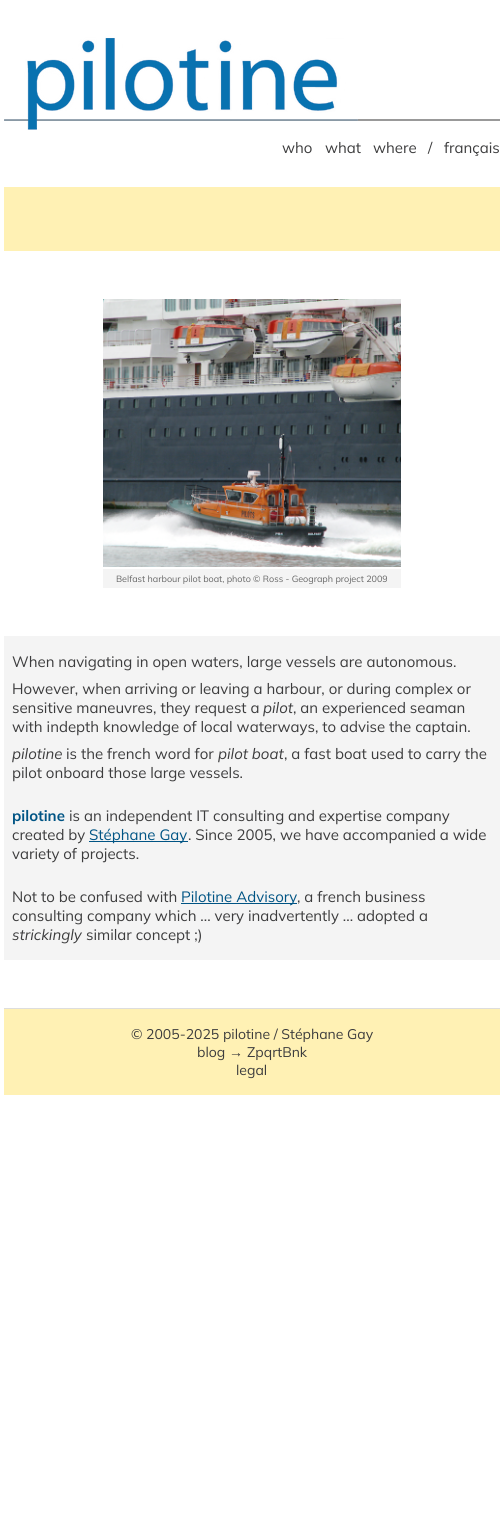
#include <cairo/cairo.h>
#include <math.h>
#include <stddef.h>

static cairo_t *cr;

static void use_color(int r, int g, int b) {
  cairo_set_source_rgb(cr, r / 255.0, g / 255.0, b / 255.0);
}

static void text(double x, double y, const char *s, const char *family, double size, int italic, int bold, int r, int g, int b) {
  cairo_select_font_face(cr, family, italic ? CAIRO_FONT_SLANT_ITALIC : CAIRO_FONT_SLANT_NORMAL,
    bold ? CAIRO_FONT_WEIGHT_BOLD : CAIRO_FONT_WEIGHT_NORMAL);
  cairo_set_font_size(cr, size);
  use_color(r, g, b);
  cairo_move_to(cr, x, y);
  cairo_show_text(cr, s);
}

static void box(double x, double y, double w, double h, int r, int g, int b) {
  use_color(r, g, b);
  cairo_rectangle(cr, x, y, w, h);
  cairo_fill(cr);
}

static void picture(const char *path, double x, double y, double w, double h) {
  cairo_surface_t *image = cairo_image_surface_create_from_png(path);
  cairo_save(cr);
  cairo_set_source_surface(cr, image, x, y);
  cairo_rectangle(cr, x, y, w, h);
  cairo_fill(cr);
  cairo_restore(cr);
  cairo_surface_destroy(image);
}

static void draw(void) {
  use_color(255, 255, 255);
  cairo_paint(cr);
  box(358, 119, 142, 2, 153, 153, 153);
  picture("img_01.png", 4, 36, 354, 94);
  box(4, 187, 496, 64, 255, 241, 180);
  picture("img_02.png", 103, 299, 298, 268);
  box(103, 569, 298, 19, 244, 244, 244);
  box(4, 636, 496, 324, 244, 244, 244);
  box(89, 841, 99, 1, 0, 84, 132);
  box(181, 903, 116, 1, 0, 84, 132);
  box(4, 1009, 496, 86, 255, 241, 180);
  box(4, 1008, 496, 1, 221, 221, 221);
  text(282, 153, "who", "Mulish", 15, 0, 0, 60, 60, 61);
  text(325, 153, "what", "Mulish", 15, 0, 0, 60, 60, 61);
  text(373, 153, "where", "Mulish", 15, 0, 0, 60, 60, 61);
  text(428, 153, "/", "Mulish", 15, 0, 0, 60, 60, 61);
  text(444, 153, "français", "Mulish", 15, 0, 0, 60, 60, 61);
  text(116, 582, "Belfast harbour pilot boat, photo © Ross - Geograph project 2009", "Mulish", 9, 0, 0, 102, 102, 102);
  text(12, 667, "When navigating in open waters, large vessels are autonomous.", "Mulish", 15, 0, 0, 60, 60, 61);
  text(12, 694, "However, when arriving or leaving a harbour, or during complex or", "Mulish", 15, 0, 0, 60, 60, 61);
  text(12, 713, "sensitive maneuvres, they request a", "Mulish", 15, 0, 0, 60, 60, 61);
  text(263, 713, "pilot", "Mulish", 15, 1, 0, 60, 60, 61);
  text(293, 713, ", an experienced seaman", "Mulish", 15, 0, 0, 60, 60, 61);
  text(12, 732, "with indepth knowledge of local waterways, to advise the captain.", "Mulish", 15, 0, 0, 60, 60, 61);
  text(12, 759, "pilotine", "Mulish", 15, 1, 0, 60, 60, 61);
  text(66, 759, "is the french word for", "Mulish", 15, 0, 0, 60, 60, 61);
  text(218, 759, "pilot boat", "Mulish", 15, 1, 0, 60, 60, 61);
  text(284, 759, ", a fast boat used to carry the", "Mulish", 15, 0, 0, 60, 60, 61);
  text(12, 778, "pilot onboard those large vessels.", "Mulish", 15, 0, 0, 60, 60, 61);
  text(12, 821, "pilotine", "Mulish", 15, 0, 1, 0, 84, 132);
  text(69, 821, "is an independent IT consulting and expertise company", "Mulish", 15, 0, 0, 60, 60, 61);
  text(12, 840, "created by", "Mulish", 15, 0, 0, 60, 60, 61);
  text(89, 840, "Stéphane Gay", "Mulish", 15, 0, 0, 0, 84, 132);
  text(188, 840, ". Since 2005, we have accompanied a wide", "Mulish", 15, 0, 0, 60, 60, 61);
  text(12, 859, "variety of projects.", "Mulish", 15, 0, 0, 60, 60, 61);
  text(12, 902, "Not to be confused with", "Mulish", 15, 0, 0, 60, 60, 61);
  text(181, 902, "Pilotine Advisory", "Mulish", 15, 0, 0, 0, 84, 132);
  text(297, 902, ", a french business", "Mulish", 15, 0, 0, 60, 60, 61);
  text(12, 921, "consulting company which ... very inadvertently ... adopted a", "Mulish", 15, 0, 0, 60, 60, 61);
  text(12, 940, "strickingly", "Mulish", 15, 1, 0, 60, 60, 61);
  text(86, 940, "similar concept ;)", "Mulish", 15, 0, 0, 60, 60, 61);
  text(131, 1039, "© 2005-2025 pilotine / Stéphane Gay", "Mulish", 14, 0, 0, 60, 60, 61);
  text(197, 1057, "blog", "Mulish", 14, 0, 0, 60, 60, 61);
  text(229, 1057, "→", "Liberation Sans", 14, 0, 0, 60, 60, 61);
  text(247, 1057, "ZpqrtBnk", "Mulish", 14, 0, 0, 60, 60, 61);
  text(236, 1075, "legal", "Mulish", 14, 0, 0, 60, 60, 61);
}

int main(void) {
  cairo_surface_t *surface = cairo_image_surface_create(CAIRO_FORMAT_RGB24, 504, 1514);
  cr = cairo_create(surface);
  cairo_font_options_t *options = cairo_font_options_create();
  cairo_font_options_set_hint_metrics(options, CAIRO_HINT_METRICS_OFF);
  cairo_font_options_set_hint_style(options, CAIRO_HINT_STYLE_NONE);
  cairo_set_font_options(cr, options);
  cairo_set_miter_limit(cr, 4);
  draw();
  cairo_surface_write_to_png(surface, "out.png");
  cairo_font_options_destroy(options);
  cairo_destroy(cr);
  cairo_surface_destroy(surface);
  return 0;
}
